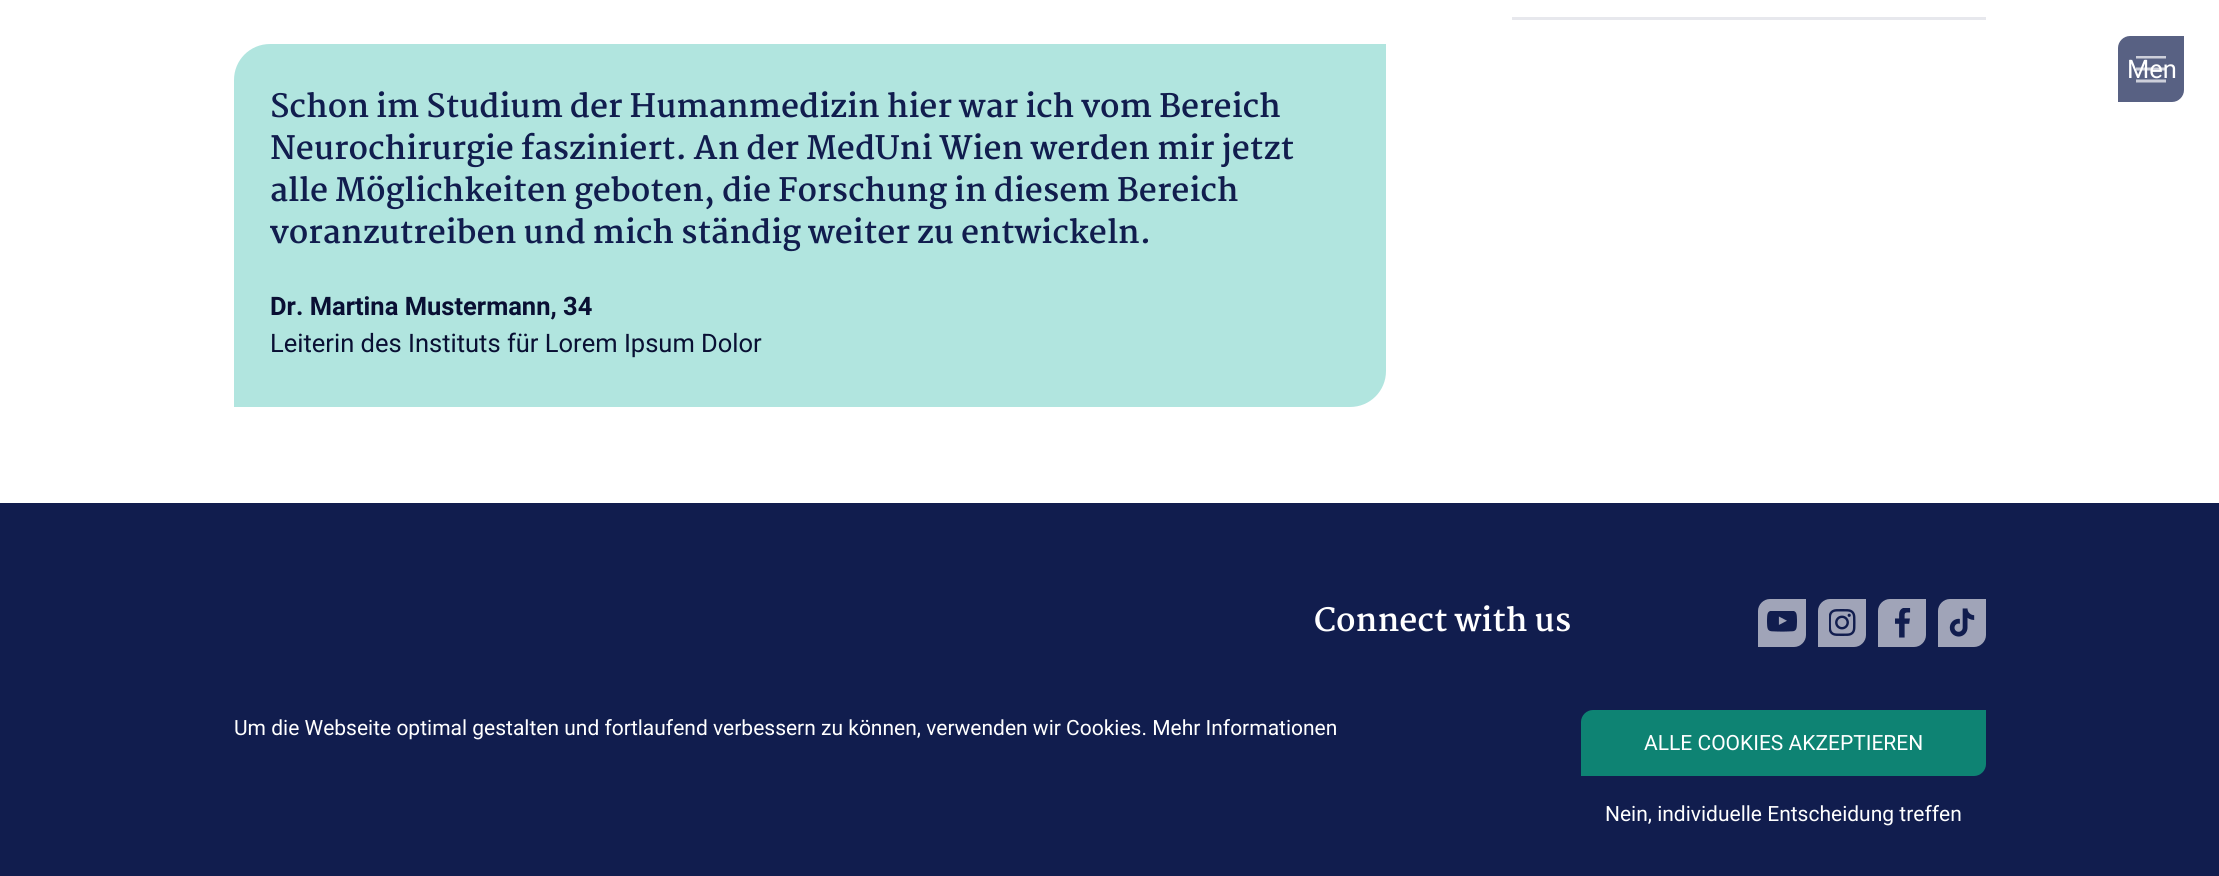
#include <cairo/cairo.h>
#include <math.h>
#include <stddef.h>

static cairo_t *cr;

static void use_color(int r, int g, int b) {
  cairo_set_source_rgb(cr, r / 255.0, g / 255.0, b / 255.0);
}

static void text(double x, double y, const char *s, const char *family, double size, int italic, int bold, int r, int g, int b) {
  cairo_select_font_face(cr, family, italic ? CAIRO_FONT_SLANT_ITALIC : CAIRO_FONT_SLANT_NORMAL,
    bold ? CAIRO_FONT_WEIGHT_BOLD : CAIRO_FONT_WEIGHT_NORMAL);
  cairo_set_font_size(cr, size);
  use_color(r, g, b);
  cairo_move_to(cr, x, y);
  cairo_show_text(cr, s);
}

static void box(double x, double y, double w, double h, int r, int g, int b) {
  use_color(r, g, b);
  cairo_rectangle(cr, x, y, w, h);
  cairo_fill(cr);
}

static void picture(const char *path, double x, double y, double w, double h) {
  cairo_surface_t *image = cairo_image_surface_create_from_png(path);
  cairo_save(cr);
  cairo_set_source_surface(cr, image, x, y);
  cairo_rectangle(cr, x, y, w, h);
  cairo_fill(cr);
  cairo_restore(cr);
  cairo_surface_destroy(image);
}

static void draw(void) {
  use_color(255, 255, 255);
  cairo_paint(cr);
  use_color(88, 97, 131);
  cairo_new_path(cr);
  cairo_move_to(cr, 2130, 36);
  cairo_line_to(cr, 2184, 36);
  cairo_line_to(cr, 2184, 90);
  cairo_curve_to(cr, 2184, 96.5, 2178.5, 102, 2172, 102);
  cairo_line_to(cr, 2118, 102);
  cairo_line_to(cr, 2118, 48);
  cairo_curve_to(cr, 2118, 41.5, 2123.5, 36, 2130, 36);
  cairo_close_path(cr);
  cairo_fill(cr);
  picture("img_01.png", 2136, 56, 30, 27);
  box(1512, 17, 474, 3, 231, 232, 237);
  use_color(177, 229, 223);
  cairo_new_path(cr);
  cairo_move_to(cr, 270, 44);
  cairo_line_to(cr, 1386, 44);
  cairo_line_to(cr, 1386, 371);
  cairo_curve_to(cr, 1386, 391, 1370, 407, 1350, 407);
  cairo_line_to(cr, 234, 407);
  cairo_line_to(cr, 234, 80);
  cairo_curve_to(cr, 234, 60, 250, 44, 270, 44);
  cairo_close_path(cr);
  cairo_fill(cr);
  box(0, 503, 2219, 373, 17, 29, 78);
  use_color(160, 164, 184);
  cairo_new_path(cr);
  cairo_move_to(cr, 1770, 599);
  cairo_line_to(cr, 1806, 599);
  cairo_line_to(cr, 1806, 635);
  cairo_curve_to(cr, 1806, 641.5, 1800.5, 647, 1794, 647);
  cairo_line_to(cr, 1758, 647);
  cairo_line_to(cr, 1758, 611);
  cairo_curve_to(cr, 1758, 604.5, 1763.5, 599, 1770, 599);
  cairo_close_path(cr);
  cairo_fill(cr);
  picture("img_02.png", 1767, 611, 30, 21);
  cairo_new_path(cr);
  cairo_move_to(cr, 1830, 599);
  cairo_line_to(cr, 1866, 599);
  cairo_line_to(cr, 1866, 635);
  cairo_curve_to(cr, 1866, 641.5, 1860.5, 647, 1854, 647);
  cairo_line_to(cr, 1818, 647);
  cairo_line_to(cr, 1818, 611);
  cairo_curve_to(cr, 1818, 604.5, 1823.5, 599, 1830, 599);
  cairo_close_path(cr);
  cairo_fill(cr);
  picture("img_03.png", 1829, 609, 27, 27);
  cairo_new_path(cr);
  cairo_move_to(cr, 1890, 599);
  cairo_line_to(cr, 1926, 599);
  cairo_line_to(cr, 1926, 635);
  cairo_curve_to(cr, 1926, 641.5, 1920.5, 647, 1914, 647);
  cairo_line_to(cr, 1878, 647);
  cairo_line_to(cr, 1878, 611);
  cairo_curve_to(cr, 1878, 604.5, 1883.5, 599, 1890, 599);
  cairo_close_path(cr);
  cairo_fill(cr);
  picture("img_04.png", 1895, 608, 16, 30);
  cairo_new_path(cr);
  cairo_move_to(cr, 1950, 599);
  cairo_line_to(cr, 1986, 599);
  cairo_line_to(cr, 1986, 635);
  cairo_curve_to(cr, 1986, 641.5, 1980.5, 647, 1974, 647);
  cairo_line_to(cr, 1938, 647);
  cairo_line_to(cr, 1938, 611);
  cairo_curve_to(cr, 1938, 604.5, 1943.5, 599, 1950, 599);
  cairo_close_path(cr);
  cairo_fill(cr);
  picture("img_05.png", 1949, 608, 26, 29);
  use_color(14, 131, 115);
  cairo_new_path(cr);
  cairo_move_to(cr, 1593, 710);
  cairo_line_to(cr, 1986, 710);
  cairo_line_to(cr, 1986, 764);
  cairo_curve_to(cr, 1986, 770.5, 1980.5, 776, 1974, 776);
  cairo_line_to(cr, 1581, 776);
  cairo_line_to(cr, 1581, 722);
  cairo_curve_to(cr, 1581, 715.5, 1586.5, 710, 1593, 710);
  cairo_close_path(cr);
  cairo_fill(cr);
  text(2127, 78, "Men", "Roboto", 25.5, 0, 0, 255, 255, 255);
  text(270, 117, "Schon im Studium der Humanmedizin hier war ich vom Bereich", "Martel", 31.5, 0, 1, 17, 29, 78);
  text(270, 159, "Neurochirurgie fasziniert. An der MedUni Wien werden mir jetzt", "Martel", 31.5, 0, 1, 17, 29, 78);
  text(270, 201, "alle Möglichkeiten geboten, die Forschung in diesem Bereich", "Martel", 31.5, 0, 1, 17, 29, 78);
  text(270, 243, "voranzutreiben und mich ständig weiter zu entwickeln.", "Martel", 31.5, 0, 1, 17, 29, 78);
  text(270, 315, "Dr. Martina Mustermann, 34", "Roboto", 25.5, 0, 1, 9, 15, 51);
  text(270, 352, "Leiterin des Instituts für Lorem Ipsum Dolor", "Roboto", 25.5, 0, 0, 9, 15, 51);
  text(1314, 631, "Connect with us", "Martel", 31.5, 0, 1, 255, 255, 255);
  text(234, 735, "Um die Webseite optimal gestalten und fortlaufend verbessern zu können, verwenden wir Cookies. Mehr Informationen", "Roboto", 21, 0, 0, 255, 255, 255);
  text(1644, 750, "ALLE COOKIES AKZEPTIEREN", "Roboto", 21, 0, 0, 255, 255, 255);
  text(1605, 821, "Nein, individuelle Entscheidung treffen", "Roboto", 21, 0, 0, 255, 255, 255);
}

int main(void) {
  cairo_surface_t *surface = cairo_image_surface_create(CAIRO_FORMAT_RGB24, 2219, 876);
  cr = cairo_create(surface);
  cairo_font_options_t *options = cairo_font_options_create();
  cairo_font_options_set_hint_metrics(options, CAIRO_HINT_METRICS_OFF);
  cairo_font_options_set_hint_style(options, CAIRO_HINT_STYLE_NONE);
  cairo_set_font_options(cr, options);
  cairo_set_miter_limit(cr, 4);
  draw();
  cairo_surface_write_to_png(surface, "out.png");
  cairo_font_options_destroy(options);
  cairo_destroy(cr);
  cairo_surface_destroy(surface);
  return 0;
}
